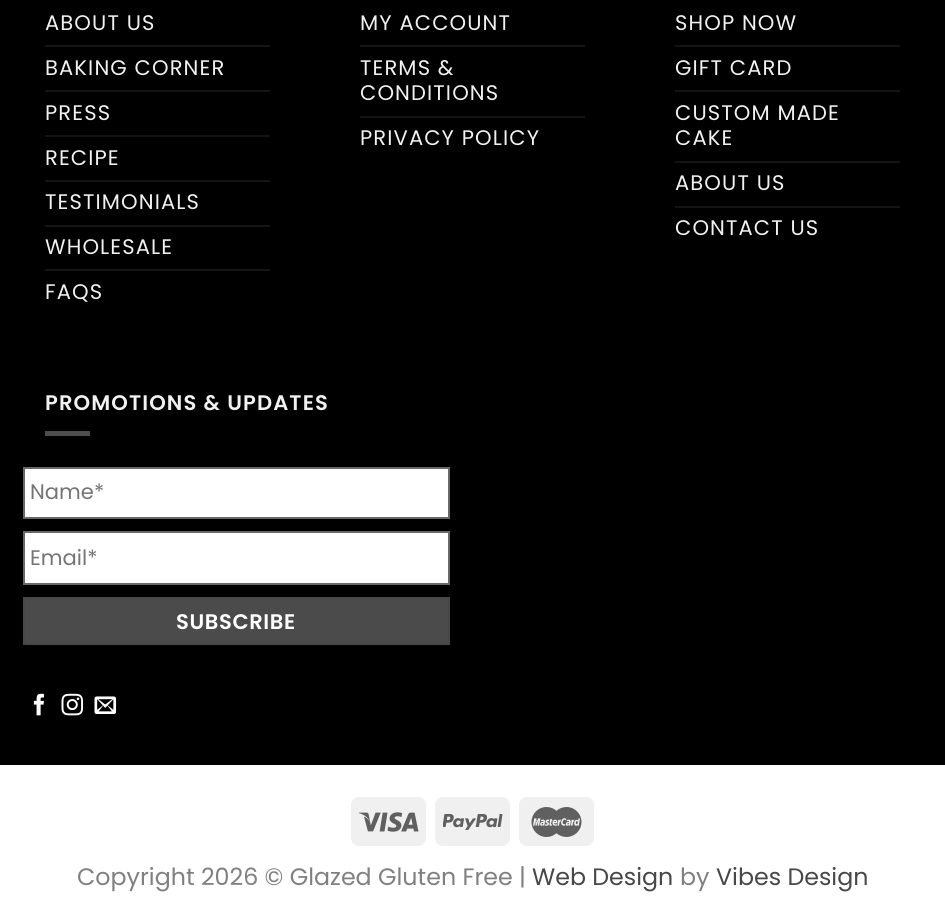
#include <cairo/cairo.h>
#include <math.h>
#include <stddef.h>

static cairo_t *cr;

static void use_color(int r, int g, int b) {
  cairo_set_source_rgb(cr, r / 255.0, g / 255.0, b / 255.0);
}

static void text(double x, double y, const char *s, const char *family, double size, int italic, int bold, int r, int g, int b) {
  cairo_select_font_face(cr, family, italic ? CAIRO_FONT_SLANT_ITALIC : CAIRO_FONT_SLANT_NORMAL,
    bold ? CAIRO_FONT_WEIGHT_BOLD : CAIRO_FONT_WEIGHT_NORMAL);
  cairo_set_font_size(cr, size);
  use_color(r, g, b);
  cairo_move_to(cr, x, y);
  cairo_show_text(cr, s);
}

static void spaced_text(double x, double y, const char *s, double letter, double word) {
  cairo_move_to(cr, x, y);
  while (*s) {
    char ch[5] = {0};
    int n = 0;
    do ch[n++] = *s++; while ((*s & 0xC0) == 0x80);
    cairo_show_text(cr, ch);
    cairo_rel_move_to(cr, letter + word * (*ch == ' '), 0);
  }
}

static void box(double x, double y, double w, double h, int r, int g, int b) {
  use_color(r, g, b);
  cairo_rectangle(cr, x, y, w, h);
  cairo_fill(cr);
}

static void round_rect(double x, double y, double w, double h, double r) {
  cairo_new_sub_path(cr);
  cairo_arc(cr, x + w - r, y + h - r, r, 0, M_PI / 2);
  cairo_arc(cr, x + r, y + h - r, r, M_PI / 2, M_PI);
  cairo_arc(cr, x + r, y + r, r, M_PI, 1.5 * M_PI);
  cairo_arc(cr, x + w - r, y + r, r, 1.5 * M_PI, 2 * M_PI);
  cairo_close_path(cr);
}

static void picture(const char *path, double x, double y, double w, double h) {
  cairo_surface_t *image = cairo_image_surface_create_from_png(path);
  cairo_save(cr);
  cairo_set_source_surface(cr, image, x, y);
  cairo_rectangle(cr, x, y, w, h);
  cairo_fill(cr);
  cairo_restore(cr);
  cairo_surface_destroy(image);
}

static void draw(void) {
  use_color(255, 255, 255);
  cairo_paint(cr);
  box(0, 0, 945, 765, 0, 0, 0);
  box(45, 45, 225, 2, 20, 20, 20);
  box(45, 90, 225, 2, 20, 20, 20);
  box(45, 135, 225, 2, 20, 20, 20);
  box(45, 180, 225, 2, 20, 20, 20);
  box(45, 225, 225, 2, 20, 20, 20);
  box(45, 269, 225, 2, 20, 20, 20);
  box(360, 45, 225, 2, 20, 20, 20);
  box(360, 116, 225, 2, 20, 20, 20);
  box(675, 45, 225, 2, 20, 20, 20);
  box(675, 90, 225, 2, 20, 20, 20);
  box(675, 161, 225, 2, 20, 20, 20);
  box(675, 206, 225, 2, 20, 20, 20);
  box(45, 431, 45, 5, 77, 77, 77);
  use_color(255, 255, 255);
  cairo_rectangle(cr, 24, 468, 425, 50);
  cairo_fill_preserve(cr);
  use_color(104, 104, 104);
  cairo_stroke(cr);
  use_color(255, 255, 255);
  cairo_rectangle(cr, 24, 532, 425, 52);
  cairo_fill_preserve(cr);
  use_color(104, 104, 104);
  cairo_stroke(cr);
  use_color(75, 75, 75);
  cairo_rectangle(cr, 24, 598, 425, 46);
  cairo_fill_preserve(cr);
  use_color(71, 71, 71);
  cairo_stroke(cr);
  picture("img_01.png", 33, 693, 11, 23);
  picture("img_02.png", 61, 693, 22, 23);
  picture("img_03.png", 94, 696, 23, 18);
  use_color(240, 240, 240);
  round_rect(351, 797, 75, 49, 8);
  cairo_fill(cr);
  picture("img_04.png", 359, 812, 60, 20);
  round_rect(435, 797, 75, 49, 8);
  cairo_fill(cr);
  picture("img_05.png", 443, 814, 60, 16);
  round_rect(519, 797, 75, 49, 8);
  cairo_fill(cr);
  picture("img_06.png", 531, 807, 51, 30);
  cairo_select_font_face(cr, "Poppins", CAIRO_FONT_SLANT_NORMAL, CAIRO_FONT_WEIGHT_NORMAL);
  cairo_set_font_size(cr, 21.1);
  use_color(241, 241, 241);
  spaced_text(45, 30, "ABOUT US", 1.1, 0);
  spaced_text(45, 75, "BAKING CORNER", 1.1, 0);
  spaced_text(45, 120, "PRESS", 1.1, 0);
  spaced_text(45, 165, "RECIPE", 1.1, 0);
  spaced_text(45, 209, "TESTIMONIALS", 1.1, 0);
  spaced_text(45, 254, "WHOLESALE", 1.1, 0);
  spaced_text(45, 299, "FAQS", 1.1, 0);
  spaced_text(360, 30, "MY ACCOUNT", 1.1, 0);
  spaced_text(360, 75, "TERMS &", 1.1, 0);
  spaced_text(360, 100, "CONDITIONS", 1.1, 0);
  spaced_text(360, 145, "PRIVACY POLICY", 1.1, 0);
  spaced_text(675, 30, "SHOP NOW", 1.1, 0);
  spaced_text(675, 75, "GIFT CARD", 1.1, 0);
  spaced_text(675, 120, "CUSTOM MADE", 1.1, 0);
  spaced_text(675, 145, "CAKE", 1.1, 0);
  spaced_text(675, 190, "ABOUT US", 1.1, 0);
  spaced_text(675, 235, "CONTACT US", 1.1, 0);
  cairo_select_font_face(cr, "Poppins SemiBold", CAIRO_FONT_SLANT_NORMAL, CAIRO_FONT_WEIGHT_NORMAL);
  spaced_text(45, 410, "PROMOTIONS & UPDATES", 1.1, 0);
  text(30, 499, "Name*", "Poppins", 21.1, 0, 0, 117, 117, 117);
  text(30, 565, "Email*", "Poppins", 21.1, 0, 0, 117, 117, 117);
  cairo_select_font_face(cr, "Poppins SemiBold", CAIRO_FONT_SLANT_NORMAL, CAIRO_FONT_WEIGHT_NORMAL);
  use_color(255, 255, 255);
  spaced_text(176, 629, "SUBSCRIBE", 0.6, 0);
  text(77, 885, "Copyright 2026 © Glazed Gluten Free |", "Poppins", 23.75, 0, 0, 128, 128, 128);
  text(532, 885, "Web Design", "Poppins", 23.75, 0, 0, 71, 71, 71);
  text(680, 885, "by", "Poppins", 23.75, 0, 0, 128, 128, 128);
  text(716, 885, "Vibes Design", "Poppins", 23.75, 0, 0, 71, 71, 71);
}

int main(void) {
  cairo_surface_t *surface = cairo_image_surface_create(CAIRO_FORMAT_RGB24, 945, 918);
  cr = cairo_create(surface);
  cairo_font_options_t *options = cairo_font_options_create();
  cairo_font_options_set_hint_metrics(options, CAIRO_HINT_METRICS_OFF);
  cairo_font_options_set_hint_style(options, CAIRO_HINT_STYLE_NONE);
  cairo_set_font_options(cr, options);
  cairo_set_miter_limit(cr, 4);
  draw();
  cairo_surface_write_to_png(surface, "out.png");
  cairo_font_options_destroy(options);
  cairo_destroy(cr);
  cairo_surface_destroy(surface);
  return 0;
}
